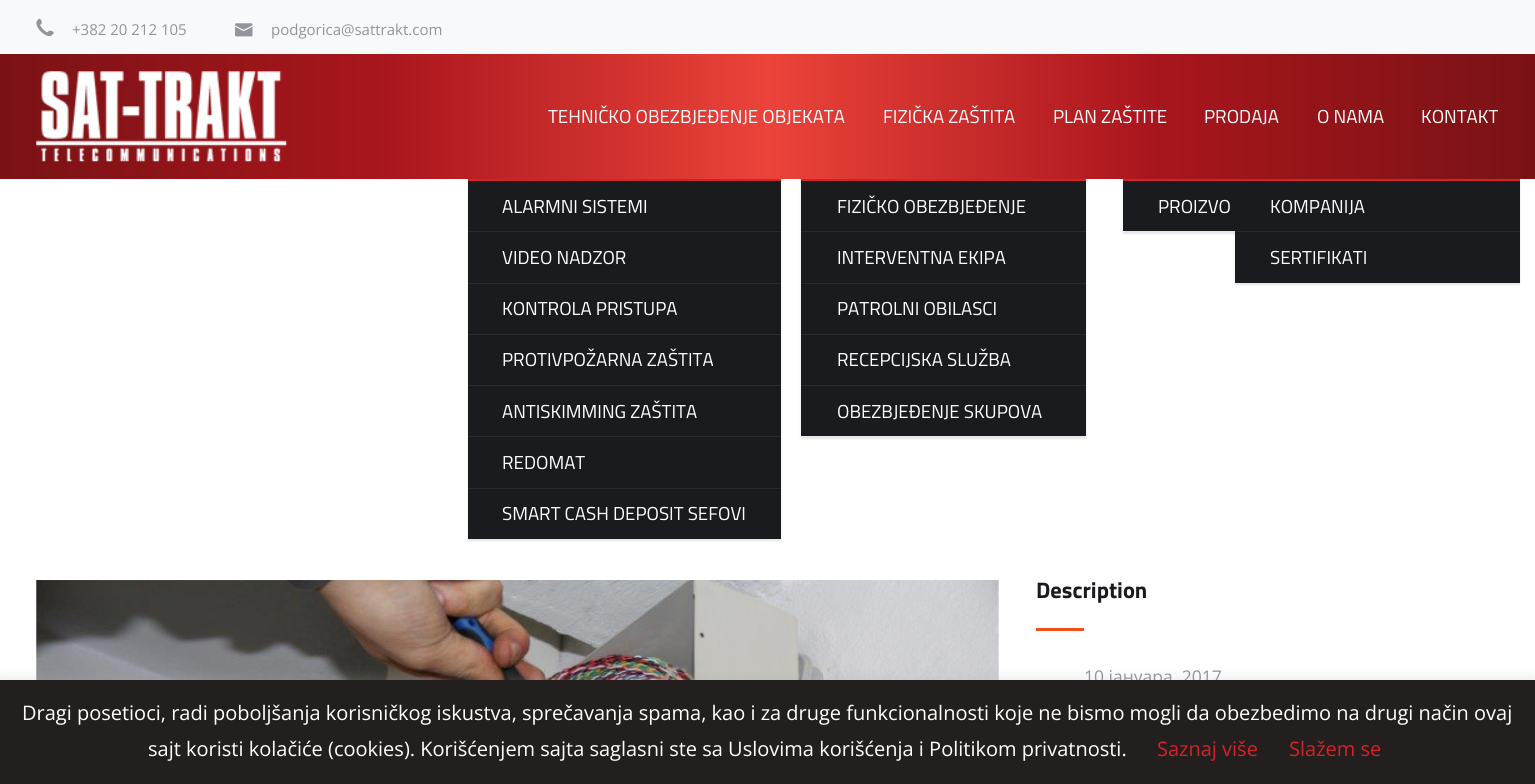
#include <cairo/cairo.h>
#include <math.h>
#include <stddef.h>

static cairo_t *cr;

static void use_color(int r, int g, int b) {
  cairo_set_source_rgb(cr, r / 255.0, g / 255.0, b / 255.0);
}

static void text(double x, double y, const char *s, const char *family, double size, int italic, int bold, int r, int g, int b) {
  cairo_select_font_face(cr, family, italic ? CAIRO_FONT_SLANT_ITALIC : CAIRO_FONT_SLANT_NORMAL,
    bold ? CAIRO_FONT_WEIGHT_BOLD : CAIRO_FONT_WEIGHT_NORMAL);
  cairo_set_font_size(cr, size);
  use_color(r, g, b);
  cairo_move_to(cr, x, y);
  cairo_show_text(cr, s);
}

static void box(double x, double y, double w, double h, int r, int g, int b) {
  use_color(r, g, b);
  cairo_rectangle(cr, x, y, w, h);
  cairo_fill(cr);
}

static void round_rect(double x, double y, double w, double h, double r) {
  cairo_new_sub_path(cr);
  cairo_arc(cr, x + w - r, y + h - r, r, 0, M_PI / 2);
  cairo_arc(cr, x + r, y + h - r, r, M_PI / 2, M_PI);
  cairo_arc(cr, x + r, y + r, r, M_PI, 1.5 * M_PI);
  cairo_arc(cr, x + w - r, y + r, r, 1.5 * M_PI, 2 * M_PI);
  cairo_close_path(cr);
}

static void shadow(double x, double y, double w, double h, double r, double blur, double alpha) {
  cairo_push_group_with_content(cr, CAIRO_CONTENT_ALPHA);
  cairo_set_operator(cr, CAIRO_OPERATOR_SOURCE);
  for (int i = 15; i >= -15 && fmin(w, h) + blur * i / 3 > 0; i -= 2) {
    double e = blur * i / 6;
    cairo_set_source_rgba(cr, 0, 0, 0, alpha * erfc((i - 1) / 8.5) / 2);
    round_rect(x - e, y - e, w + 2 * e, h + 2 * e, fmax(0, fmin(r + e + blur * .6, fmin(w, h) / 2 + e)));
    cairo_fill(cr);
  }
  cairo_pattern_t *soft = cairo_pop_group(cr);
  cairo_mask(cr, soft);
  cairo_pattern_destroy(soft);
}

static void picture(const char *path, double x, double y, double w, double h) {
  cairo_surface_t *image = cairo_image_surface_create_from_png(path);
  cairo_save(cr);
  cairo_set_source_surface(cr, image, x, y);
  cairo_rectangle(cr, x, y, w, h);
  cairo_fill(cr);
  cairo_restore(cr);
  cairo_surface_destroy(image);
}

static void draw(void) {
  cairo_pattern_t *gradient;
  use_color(255, 255, 255);
  cairo_paint(cr);
  box(0, 0, 1535, 54, 247, 249, 250);
  picture("img_01.png", 36, 18, 18, 19);
  picture("img_02.png", 235, 23, 18, 14);
  gradient = cairo_pattern_create_linear(0, 116, 1535, 116);
  cairo_pattern_add_color_stop_rgba(gradient, 0, 0.475, 0.071, 0.082, 1);
  cairo_pattern_add_color_stop_rgba(gradient, 0.25, 0.663, 0.086, 0.114, 1);
  cairo_pattern_add_color_stop_rgba(gradient, 0.5, 0.922, 0.263, 0.227, 1);
  cairo_pattern_add_color_stop_rgba(gradient, 0.75, 0.663, 0.086, 0.114, 1);
  cairo_pattern_add_color_stop_rgba(gradient, 1, 0.475, 0.071, 0.082, 1);
  cairo_set_source(cr, gradient);
  cairo_pattern_destroy(gradient);
  cairo_rectangle(cr, 0, 54, 1535, 125);
  cairo_fill(cr);
  picture("img_03.png", 36, 71, 251, 91);
  use_color(0, 0, 0);
  shadow(468, 181, 313, 360, 0, 1, 0.1);
  box(468, 179, 313, 2, 210, 35, 42);
  box(468, 181, 313, 102, 25, 27, 31);
  box(468, 231, 313, 1, 40, 42, 47);
  box(468, 283, 313, 1, 40, 42, 47);
  box(468, 284, 313, 50, 25, 27, 31);
  box(468, 334, 313, 1, 40, 42, 47);
  box(468, 335, 313, 50, 25, 27, 31);
  box(468, 385, 313, 1, 40, 42, 47);
  box(468, 386, 313, 102, 25, 27, 31);
  box(468, 436, 313, 1, 40, 42, 47);
  box(468, 488, 313, 1, 40, 42, 47);
  box(468, 489, 313, 50, 25, 27, 31);
  use_color(0, 0, 0);
  shadow(801, 181, 285, 258, 0, 1, 0.1);
  box(801, 179, 285, 2, 210, 35, 42);
  box(801, 181, 285, 102, 25, 27, 31);
  box(801, 231, 285, 1, 40, 42, 47);
  box(801, 283, 285, 1, 40, 42, 47);
  box(801, 284, 285, 50, 25, 27, 31);
  box(801, 334, 285, 1, 40, 42, 47);
  box(801, 335, 285, 50, 25, 27, 31);
  box(801, 385, 285, 1, 40, 42, 47);
  box(801, 386, 285, 50, 25, 27, 31);
  use_color(0, 0, 0);
  shadow(1123, 181, 285, 53, 0, 1, 0.1);
  box(1123, 179, 112, 2, 210, 35, 42);
  box(1123, 181, 112, 50, 25, 27, 31);
  use_color(0, 0, 0);
  shadow(1235, 181, 285, 104, 0, 1, 0.1);
  box(1235, 179, 285, 2, 210, 35, 42);
  box(1235, 181, 285, 102, 25, 27, 31);
  box(1235, 231, 285, 1, 40, 42, 47);
  picture("img_04.png", 36, 580, 963, 100);
  box(1036, 628, 48, 3, 241, 80, 26);
  use_color(172, 171, 171);
  shadow(0, 679, 1535, 105, 0, 6, 0.3);
  text(72, 35, "+382 20 212 105", "Open Sans", 15, 0, 0, 147, 149, 157);
  text(271, 35, "podgorica@sattrakt.com", "Open Sans", 15, 0, 0, 147, 149, 157);
  text(548, 123, "TEHNIČKO OBEZBJEĐENJE OBJEKATA", "Titillium Web", 18.75, 0, 0, 255, 255, 255);
  text(502, 213, "ALARMNI SISTEMI", "Titillium Web", 18.75, 0, 0, 255, 255, 255);
  text(502, 264, "VIDEO NADZOR", "Titillium Web", 18.75, 0, 0, 255, 255, 255);
  text(502, 315, "KONTROLA PRISTUPA", "Titillium Web", 18.75, 0, 0, 255, 255, 255);
  text(502, 366, "PROTIVPOŽARNA ZAŠTITA", "Titillium Web", 18.75, 0, 0, 255, 255, 255);
  text(502, 418, "ANTISKIMMING ZAŠTITA", "Titillium Web", 18.75, 0, 0, 255, 255, 255);
  text(502, 469, "REDOMAT", "Titillium Web", 18.75, 0, 0, 255, 255, 255);
  text(502, 520, "SMART CASH DEPOSIT SEFOVI", "Titillium Web", 18.75, 0, 0, 255, 255, 255);
  text(883, 123, "FIZIČKA ZAŠTITA", "Titillium Web", 18.75, 0, 0, 255, 255, 255);
  text(837, 213, "FIZIČKO OBEZBJEĐENJE", "Titillium Web", 18.75, 0, 0, 255, 255, 255);
  text(837, 264, "INTERVENTNA EKIPA", "Titillium Web", 18.75, 0, 0, 255, 255, 255);
  text(837, 315, "PATROLNI OBILASCI", "Titillium Web", 18.75, 0, 0, 255, 255, 255);
  text(837, 366, "RECEPCIJSKA SLUŽBA", "Titillium Web", 18.75, 0, 0, 255, 255, 255);
  text(837, 418, "OBEZBJEĐENJE SKUPOVA", "Titillium Web", 18.75, 0, 0, 255, 255, 255);
  text(1053, 123, "PLAN ZAŠTITE", "Titillium Web", 18.75, 0, 0, 255, 255, 255);
  text(1204, 123, "PRODAJA", "Titillium Web", 18.75, 0, 0, 255, 255, 255);
  text(1158, 213, "PROIZVO", "Titillium Web", 18.75, 0, 0, 255, 255, 255);
  text(1317, 123, "O NAMA", "Titillium Web", 18.75, 0, 0, 255, 255, 255);
  text(1270, 213, "KOMPANIJA", "Titillium Web", 18.75, 0, 0, 255, 255, 255);
  text(1270, 264, "SERTIFIKATI", "Titillium Web", 18.75, 0, 0, 255, 255, 255);
  text(1421, 123, "KONTAKT", "Titillium Web", 18.75, 0, 0, 255, 255, 255);
  text(1036, 598, "Description", "Titillium Web", 22.5, 0, 1, 25, 27, 31);
  text(1084, 683, "10 јануара, 2017", "Open Sans", 17.5, 0, 0, 147, 149, 157);
  box(0, 680, 1535, 104, 35, 31, 30);
  text(22, 720, "Dragi posetioci, radi poboljšanja korisničkog iskustva, sprečavanja spama, kao i za druge funkcionalnosti koje ne bismo mogli da obezbedimo na drugi način ovaj", "Open Sans", 20, 0, 0, 255, 255, 255);
  text(148, 756, "sajt koristi kolačiće (cookies). Korišćenjem sajta saglasni ste sa Uslovima korišćenja i Politikom privatnosti.", "Open Sans", 20, 0, 0, 255, 255, 255);
  text(1157, 756, "Saznaj više", "Open Sans", 20, 0, 0, 210, 35, 42);
  text(1289, 756, "Slažem se", "Open Sans", 20, 0, 0, 210, 35, 42);
}

int main(void) {
  cairo_surface_t *surface = cairo_image_surface_create(CAIRO_FORMAT_RGB24, 1535, 784);
  cr = cairo_create(surface);
  cairo_font_options_t *options = cairo_font_options_create();
  cairo_font_options_set_hint_metrics(options, CAIRO_HINT_METRICS_OFF);
  cairo_font_options_set_hint_style(options, CAIRO_HINT_STYLE_NONE);
  cairo_set_font_options(cr, options);
  cairo_set_miter_limit(cr, 4);
  draw();
  cairo_surface_write_to_png(surface, "out.png");
  cairo_font_options_destroy(options);
  cairo_destroy(cr);
  cairo_surface_destroy(surface);
  return 0;
}
